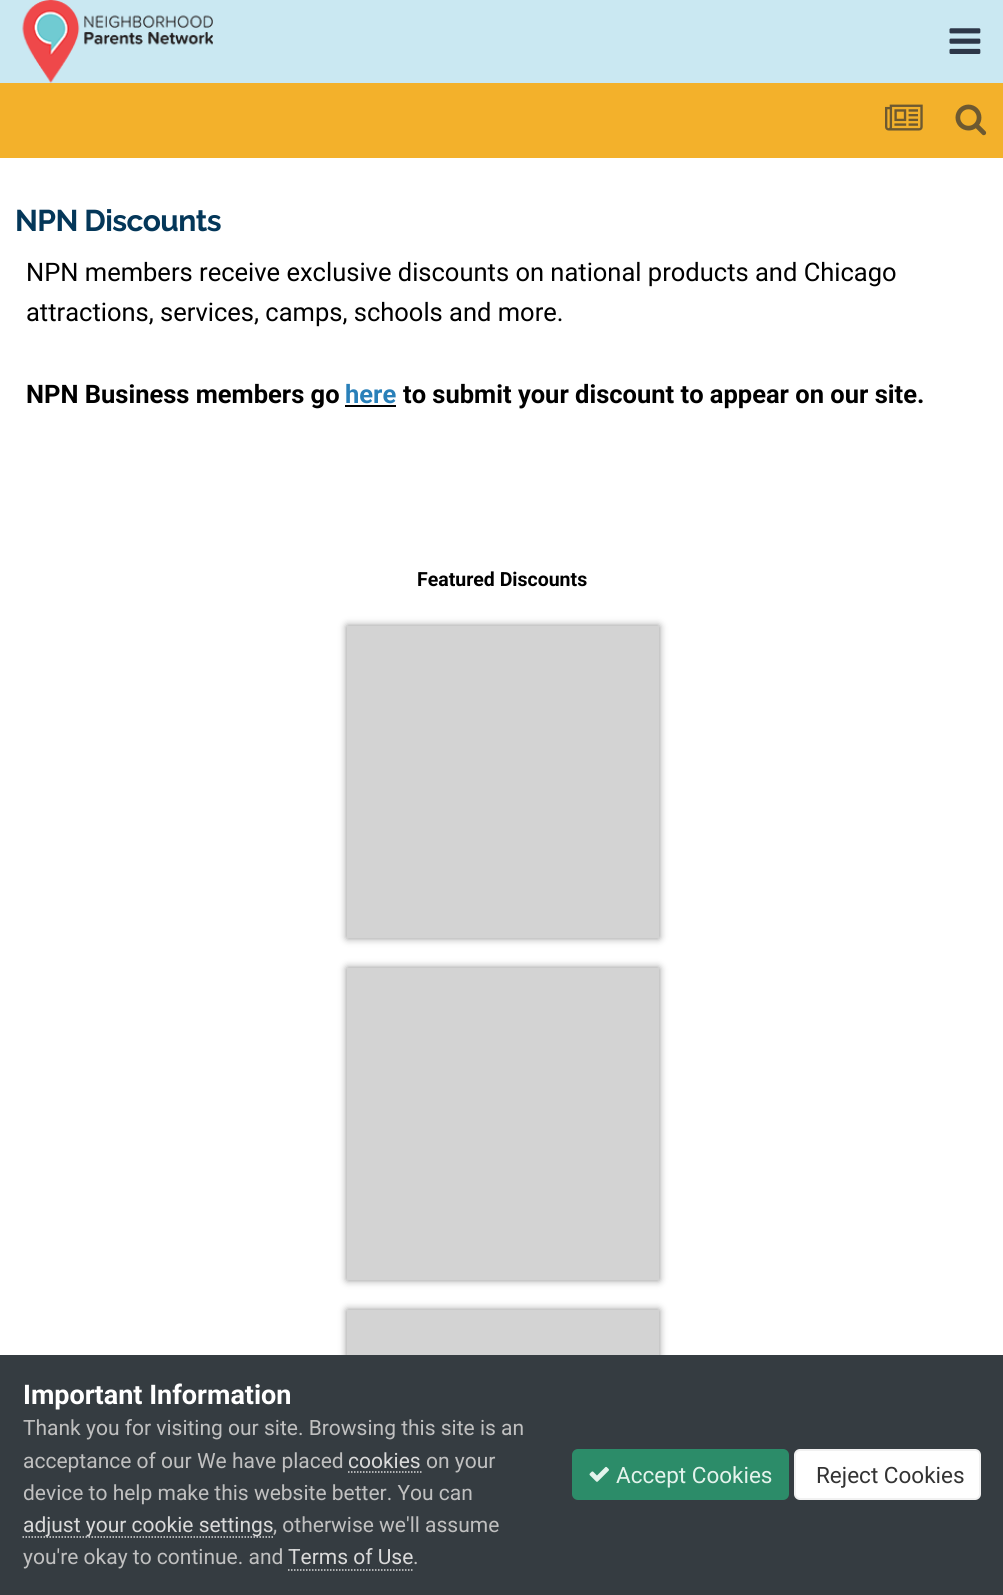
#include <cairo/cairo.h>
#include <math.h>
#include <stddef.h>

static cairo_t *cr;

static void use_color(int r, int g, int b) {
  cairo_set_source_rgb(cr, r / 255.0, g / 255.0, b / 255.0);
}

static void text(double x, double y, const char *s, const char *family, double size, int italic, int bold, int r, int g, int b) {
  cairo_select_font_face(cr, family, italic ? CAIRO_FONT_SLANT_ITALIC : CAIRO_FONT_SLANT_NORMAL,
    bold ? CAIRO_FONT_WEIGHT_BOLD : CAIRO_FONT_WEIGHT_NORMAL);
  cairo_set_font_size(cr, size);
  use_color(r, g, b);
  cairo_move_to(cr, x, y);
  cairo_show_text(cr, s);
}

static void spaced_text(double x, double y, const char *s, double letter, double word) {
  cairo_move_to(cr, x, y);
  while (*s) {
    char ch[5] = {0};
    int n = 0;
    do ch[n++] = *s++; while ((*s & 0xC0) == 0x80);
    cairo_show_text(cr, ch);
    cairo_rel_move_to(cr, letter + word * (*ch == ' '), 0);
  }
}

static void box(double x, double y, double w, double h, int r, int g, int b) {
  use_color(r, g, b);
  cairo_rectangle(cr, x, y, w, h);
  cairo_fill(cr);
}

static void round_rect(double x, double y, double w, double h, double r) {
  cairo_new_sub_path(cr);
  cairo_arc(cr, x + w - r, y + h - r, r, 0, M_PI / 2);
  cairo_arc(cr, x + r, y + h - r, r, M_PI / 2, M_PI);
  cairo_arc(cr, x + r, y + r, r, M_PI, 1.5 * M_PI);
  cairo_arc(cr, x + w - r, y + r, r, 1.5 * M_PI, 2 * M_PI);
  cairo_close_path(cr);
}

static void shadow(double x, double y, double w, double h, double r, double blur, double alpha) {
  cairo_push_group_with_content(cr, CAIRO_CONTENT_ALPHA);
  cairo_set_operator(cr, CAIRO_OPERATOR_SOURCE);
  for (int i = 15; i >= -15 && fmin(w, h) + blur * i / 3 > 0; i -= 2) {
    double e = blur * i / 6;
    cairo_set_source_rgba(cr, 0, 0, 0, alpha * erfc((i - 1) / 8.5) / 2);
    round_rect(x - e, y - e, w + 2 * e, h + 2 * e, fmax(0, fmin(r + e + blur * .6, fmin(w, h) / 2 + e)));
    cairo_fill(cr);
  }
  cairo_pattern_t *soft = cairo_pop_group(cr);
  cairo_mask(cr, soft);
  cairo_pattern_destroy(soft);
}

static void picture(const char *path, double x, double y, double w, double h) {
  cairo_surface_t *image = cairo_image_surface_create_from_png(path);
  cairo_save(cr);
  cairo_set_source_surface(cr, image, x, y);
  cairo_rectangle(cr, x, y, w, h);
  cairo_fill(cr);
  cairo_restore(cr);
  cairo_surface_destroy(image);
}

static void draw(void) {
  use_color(255, 255, 255);
  cairo_paint(cr);
  box(0, 0, 1003, 83, 202, 232, 242);
  picture("img_01.png", 22, 0, 191, 83);
  picture("img_02.png", 949, 28, 32, 26);
  box(0, 83, 1003, 75, 243, 177, 43);
  picture("img_03.png", 885, 104, 38, 27);
  picture("img_04.png", 955, 104, 32, 32);
  box(345, 405, 51, 2, 0, 0, 0);
  use_color(136, 136, 136);
  shadow(347, 626, 312, 312, 0, 4, 1);
  box(347, 626, 312, 312, 211, 211, 211);
  use_color(136, 136, 136);
  shadow(347, 968, 312, 312, 0, 4, 1);
  box(347, 968, 312, 312, 211, 211, 211);
  use_color(136, 136, 136);
  shadow(347, 1310, 312, 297, 0, 4, 1);
  box(347, 1310, 312, 45, 211, 211, 211);
  box(0, 1355, 1003, 240, 53, 60, 65);
  cairo_new_path(cr);
  cairo_move_to(cr, 348, 1472);
  cairo_line_to(cr, 421.5, 1472);
  use_color(218, 218, 218);
  cairo_set_line_width(cr, 1.5);
  cairo_set_dash(cr, (double[]){1.5, 1.5}, 2, 0);
  cairo_stroke(cr);
  cairo_new_path(cr);
  cairo_move_to(cr, 22.5, 1537);
  cairo_line_to(cr, 273, 1537);
  cairo_stroke(cr);
  cairo_new_path(cr);
  cairo_move_to(cr, 288, 1570);
  cairo_line_to(cr, 414, 1570);
  cairo_stroke(cr);
  use_color(44, 140, 105);
  round_rect(572, 1449, 217, 51, 6);
  cairo_fill(cr);
  picture("img_05.png", 589, 1466, 20, 16);
  use_color(255, 255, 255);
  round_rect(794, 1449, 187, 51, 6);
  cairo_fill(cr);
  round_rect(795, 1450, 185, 49, 5);
  cairo_set_source_rgba(cr, 0.2, 0.2, 0.2, 0.07);
  cairo_set_line_width(cr, 2);
  cairo_set_dash(cr, NULL, 0, 0);
  cairo_stroke(cr);
  cairo_select_font_face(cr, "Raleway", CAIRO_FONT_SLANT_NORMAL, CAIRO_FONT_WEIGHT_BOLD);
  cairo_set_font_size(cr, 30);
  use_color(4, 55, 89);
  spaced_text(15, 231, "NPN Discounts", -0.6, 0);
  text(26, 281, "NPN members receive exclusive discounts on national products and Chicago", "Roboto", 25.5, 0, 0, 0, 0, 0);
  text(26, 321, "attractions, services, camps, schools and more.", "Roboto", 25.5, 0, 0, 0, 0, 0);
  text(26, 403, "NPN Business members go", "Roboto", 25.5, 0, 1, 0, 0, 0);
  text(345, 403, "here", "Roboto", 25.5, 0, 1, 41, 128, 185);
  text(403, 403, "to submit your discount to appear on our site.", "Roboto", 25.5, 0, 1, 0, 0, 0);
  text(417, 586, "Featured Discounts", "Roboto", 19.5, 0, 1, 0, 0, 0);
  text(23, 1404, "Important Information", "Roboto", 27, 0, 1, 255, 255, 255);
  text(23, 1435, "Thank you for visiting our site. Browsing this site is an", "Roboto", 21, 0, 0, 192, 192, 192);
  text(23, 1468, "acceptance of our We have placed", "Roboto", 21, 0, 0, 192, 192, 192);
  text(348, 1468, "cookies", "Roboto", 21, 0, 0, 218, 218, 218);
  text(426, 1468, "on your", "Roboto", 21, 0, 0, 192, 192, 192);
  text(23, 1500, "device to help make this website better. You can", "Roboto", 21, 0, 0, 192, 192, 192);
  text(23, 1532, "adjust your cookie settings", "Roboto", 21, 0, 0, 218, 218, 218);
  text(273, 1532, ", otherwise we'll assume", "Roboto", 21, 0, 0, 192, 192, 192);
  text(23, 1564, "you're okay to continue. and", "Roboto", 21, 0, 0, 192, 192, 192);
  text(288, 1564, "Terms of Use", "Roboto", 21, 0, 0, 218, 218, 218);
  text(413, 1564, ".", "Roboto", 21, 0, 0, 192, 192, 192);
  text(616, 1483, "Accept Cookies", "Roboto", 22.5, 0, 0, 227, 243, 236);
  text(816, 1483, "Reject Cookies", "Roboto", 22.5, 0, 0, 51, 51, 51);
}

int main(void) {
  cairo_surface_t *surface = cairo_image_surface_create(CAIRO_FORMAT_RGB24, 1003, 1595);
  cr = cairo_create(surface);
  cairo_font_options_t *options = cairo_font_options_create();
  cairo_font_options_set_hint_metrics(options, CAIRO_HINT_METRICS_OFF);
  cairo_font_options_set_hint_style(options, CAIRO_HINT_STYLE_NONE);
  cairo_set_font_options(cr, options);
  cairo_set_miter_limit(cr, 4);
  draw();
  cairo_surface_write_to_png(surface, "out.png");
  cairo_font_options_destroy(options);
  cairo_destroy(cr);
  cairo_surface_destroy(surface);
  return 0;
}
